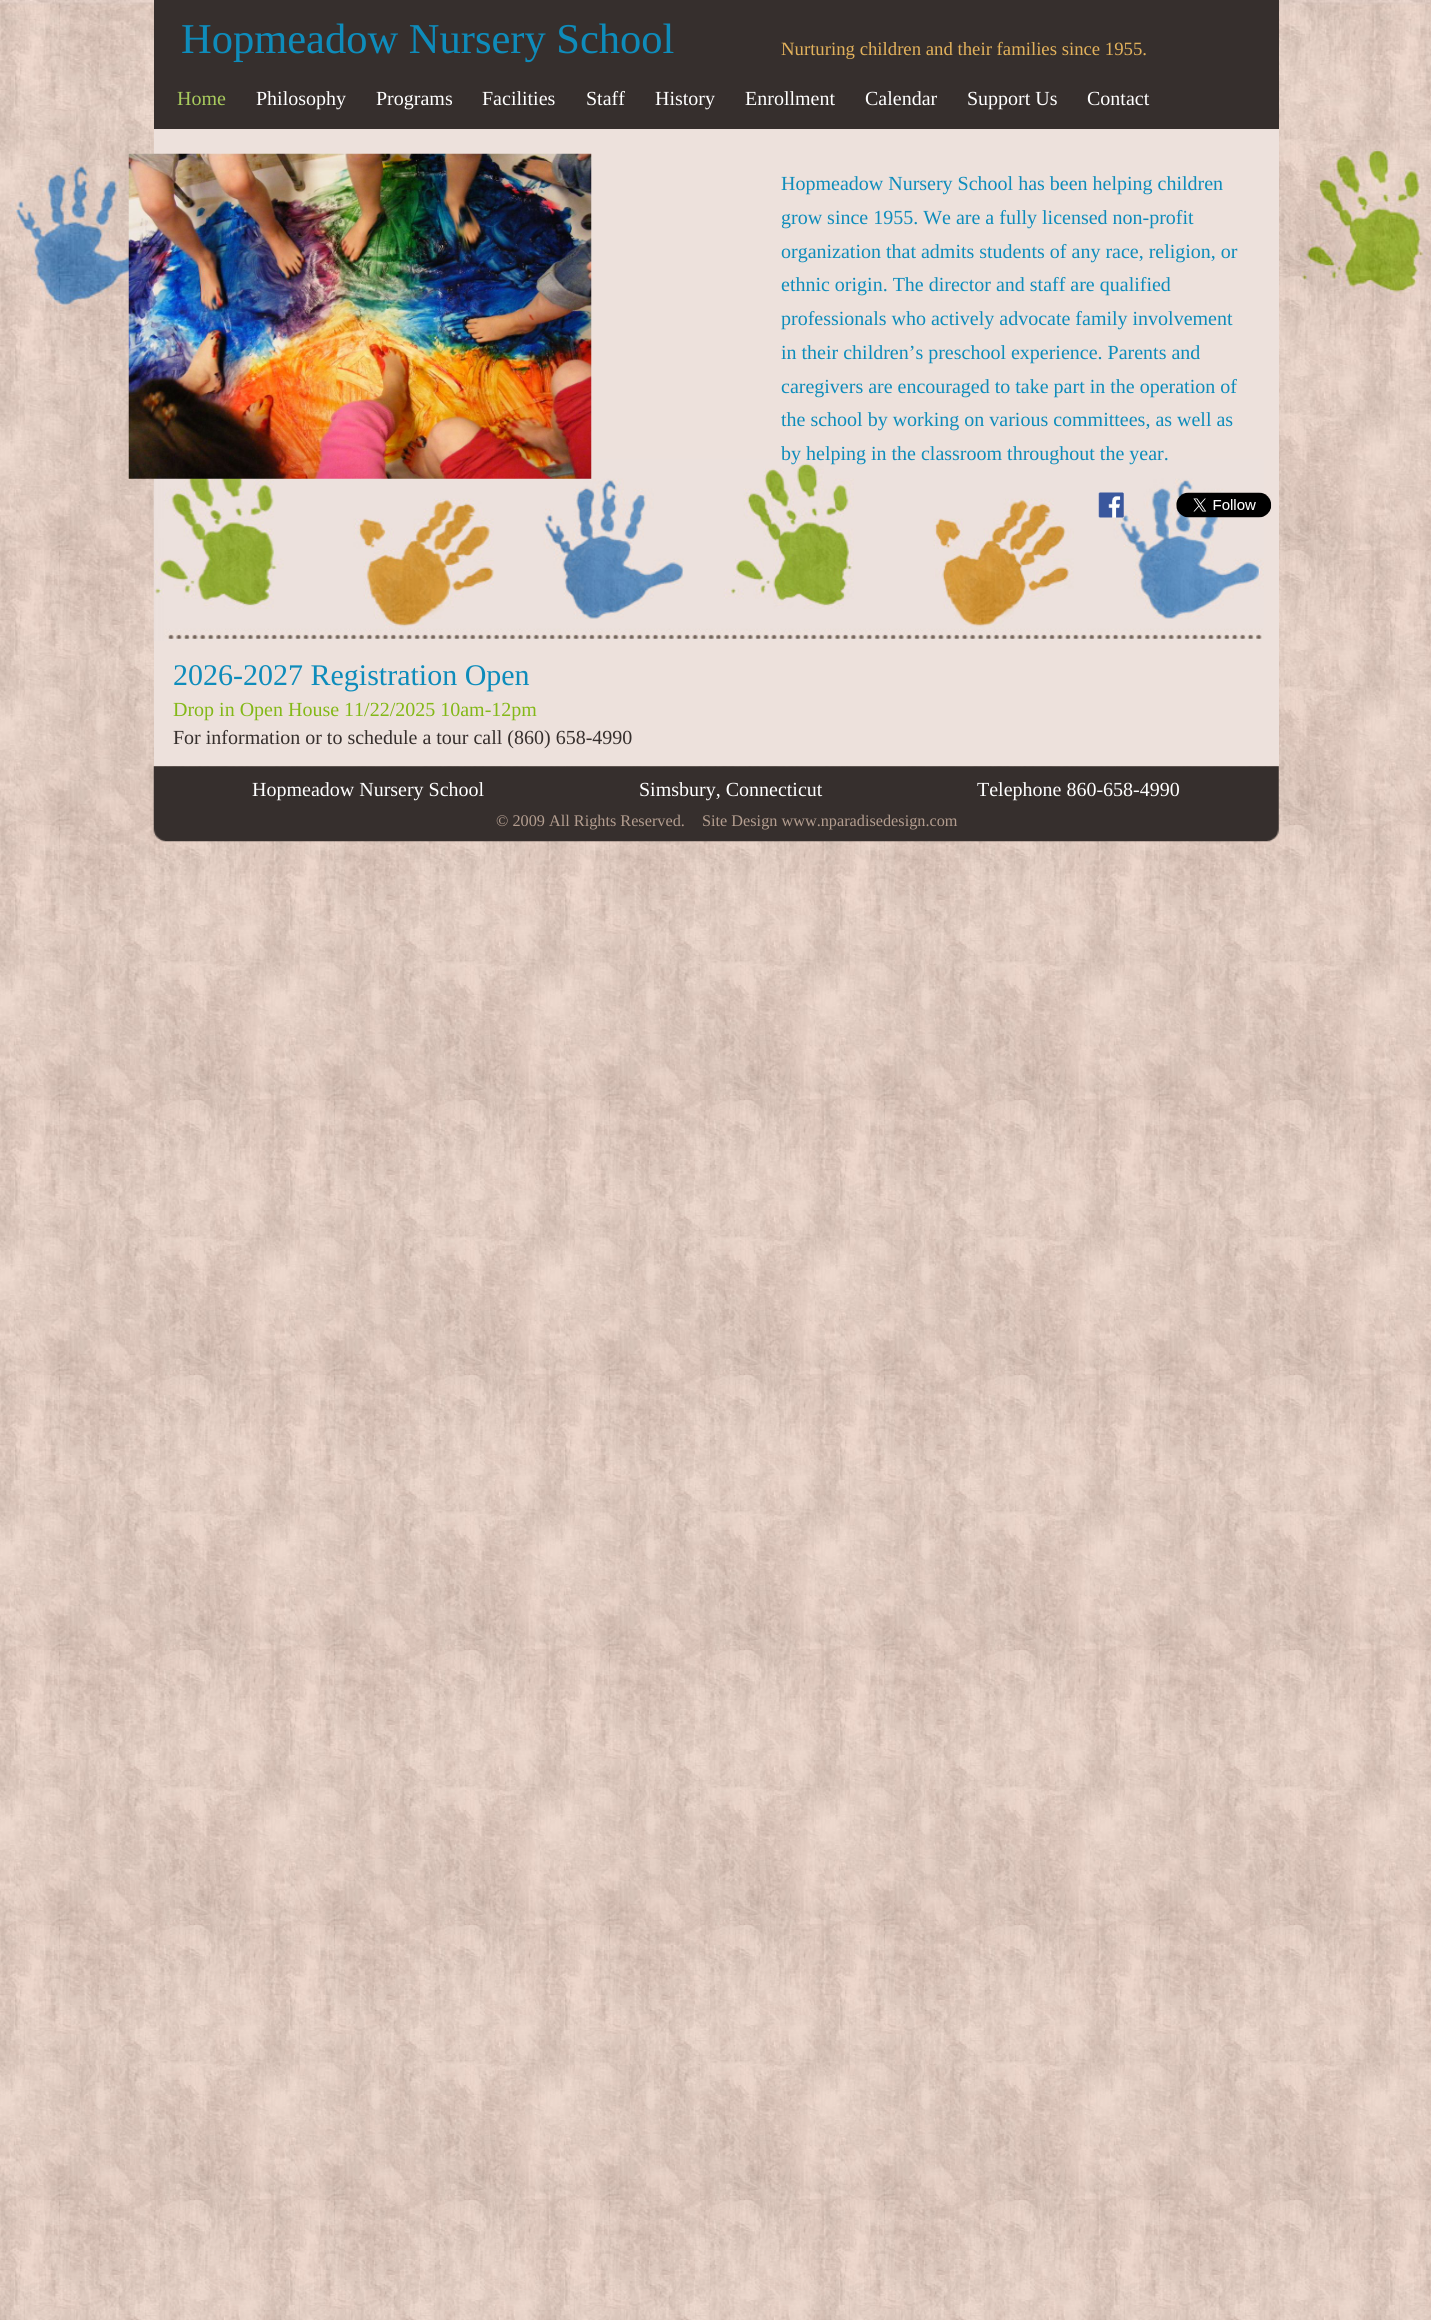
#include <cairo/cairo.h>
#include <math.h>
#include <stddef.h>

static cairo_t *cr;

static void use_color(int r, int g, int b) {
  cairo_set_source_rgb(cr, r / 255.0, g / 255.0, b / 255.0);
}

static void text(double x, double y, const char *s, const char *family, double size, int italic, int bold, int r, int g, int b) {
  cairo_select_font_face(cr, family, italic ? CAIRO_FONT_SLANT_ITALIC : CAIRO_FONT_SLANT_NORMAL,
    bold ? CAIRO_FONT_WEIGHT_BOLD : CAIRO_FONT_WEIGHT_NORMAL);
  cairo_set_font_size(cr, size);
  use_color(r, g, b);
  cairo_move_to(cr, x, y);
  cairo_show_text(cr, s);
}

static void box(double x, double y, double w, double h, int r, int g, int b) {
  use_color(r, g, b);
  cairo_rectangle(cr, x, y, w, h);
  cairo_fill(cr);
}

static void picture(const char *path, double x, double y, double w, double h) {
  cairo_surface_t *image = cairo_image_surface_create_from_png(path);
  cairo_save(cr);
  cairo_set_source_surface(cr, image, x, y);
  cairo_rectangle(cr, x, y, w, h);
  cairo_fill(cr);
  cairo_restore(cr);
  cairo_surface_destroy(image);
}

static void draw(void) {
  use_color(255, 255, 255);
  cairo_paint(cr);
  picture("img_01.png", 0, 550, 1431, 1770);
  picture("img_02.png", 0, 0, 1431, 550);
  box(154, 129, 1125, 637, 237, 225, 220);
  box(154, 0, 1125, 129, 54, 47, 45);
  picture("img_03.png", 153, 459, 1111, 182);
  picture("img_04.png", 128, 153, 464, 326);
  picture("img_05.png", 1098, 492, 26, 26);
  picture("img_06.png", 1176, 492, 96, 26);
  picture("img_07.png", 153, 766, 1126, 76);
  text(181, 53, "Hopmeadow Nursery School", "Liberation Serif", 42.5, 0, 0, 14, 140, 187);
  text(781, 55, "Nurturing children and their families since 1955.", "Liberation Serif", 18.75, 0, 0, 226, 177, 91);
  text(177, 105, "Home", "Liberation Serif", 20, 0, 0, 168, 203, 93);
  text(256, 105, "Philosophy", "Liberation Serif", 20, 0, 0, 255, 255, 255);
  text(376, 105, "Programs", "Liberation Serif", 20, 0, 0, 255, 255, 255);
  text(482, 105, "Facilities", "Liberation Serif", 20, 0, 0, 255, 255, 255);
  text(586, 105, "Staff", "Liberation Serif", 20, 0, 0, 255, 255, 255);
  text(655, 105, "History", "Liberation Serif", 20, 0, 0, 255, 255, 255);
  text(745, 105, "Enrollment", "Liberation Serif", 20, 0, 0, 255, 255, 255);
  text(865, 105, "Calendar", "Liberation Serif", 20, 0, 0, 255, 255, 255);
  text(967, 105, "Support Us", "Liberation Serif", 20, 0, 0, 255, 255, 255);
  text(1087, 105, "Contact", "Liberation Serif", 20, 0, 0, 255, 255, 255);
  text(781, 190, "Hopmeadow Nursery School has been helping children", "Liberation Serif", 20, 0, 0, 14, 140, 187);
  text(781, 224, "grow since 1955. We are a fully licensed non-profit", "Liberation Serif", 20, 0, 0, 14, 140, 187);
  text(781, 258, "organization that admits students of any race, religion, or", "Liberation Serif", 20, 0, 0, 14, 140, 187);
  text(781, 291, "ethnic origin. The director and staff are qualified", "Liberation Serif", 20, 0, 0, 14, 140, 187);
  text(781, 325, "professionals who actively advocate family involvement", "Liberation Serif", 20, 0, 0, 14, 140, 187);
  text(781, 359, "in their children’s preschool experience. Parents and", "Liberation Serif", 20, 0, 0, 14, 140, 187);
  text(781, 393, "caregivers are encouraged to take part in the operation of", "Liberation Serif", 20, 0, 0, 14, 140, 187);
  text(781, 426, "the school by working on various committees, as well as", "Liberation Serif", 20, 0, 0, 14, 140, 187);
  text(781, 460, "by helping in the classroom throughout the year.", "Liberation Serif", 20, 0, 0, 14, 140, 187);
  text(173, 685, "2026-2027 Registration Open", "Liberation Serif", 30, 0, 0, 14, 140, 187);
  text(173, 716, "Drop in Open House 11/22/2025 10am-12pm", "Liberation Serif", 20, 0, 0, 131, 184, 23);
  text(173, 744, "For information or to schedule a tour call (860) 658-4990", "Liberation Serif", 20, 0, 0, 54, 47, 45);
  text(252, 796, "Hopmeadow Nursery School", "Liberation Serif", 20, 0, 0, 255, 255, 255);
  text(639, 796, "Simsbury, Connecticut", "Liberation Serif", 20, 0, 0, 255, 255, 255);
  text(977, 796, "Telephone 860-658-4990", "Liberation Serif", 20, 0, 0, 255, 255, 255);
  text(496, 826, "© 2009 All Rights Reserved.", "Liberation Serif", 16.25, 0, 0, 179, 157, 143);
  text(702, 826, "Site Design www.nparadisedesign.com", "Liberation Serif", 16.25, 0, 0, 179, 157, 143);
}

int main(void) {
  cairo_surface_t *surface = cairo_image_surface_create(CAIRO_FORMAT_RGB24, 1431, 2320);
  cr = cairo_create(surface);
  cairo_font_options_t *options = cairo_font_options_create();
  cairo_font_options_set_hint_metrics(options, CAIRO_HINT_METRICS_OFF);
  cairo_font_options_set_hint_style(options, CAIRO_HINT_STYLE_NONE);
  cairo_set_font_options(cr, options);
  cairo_set_miter_limit(cr, 4);
  draw();
  cairo_surface_write_to_png(surface, "out.png");
  cairo_font_options_destroy(options);
  cairo_destroy(cr);
  cairo_surface_destroy(surface);
  return 0;
}
